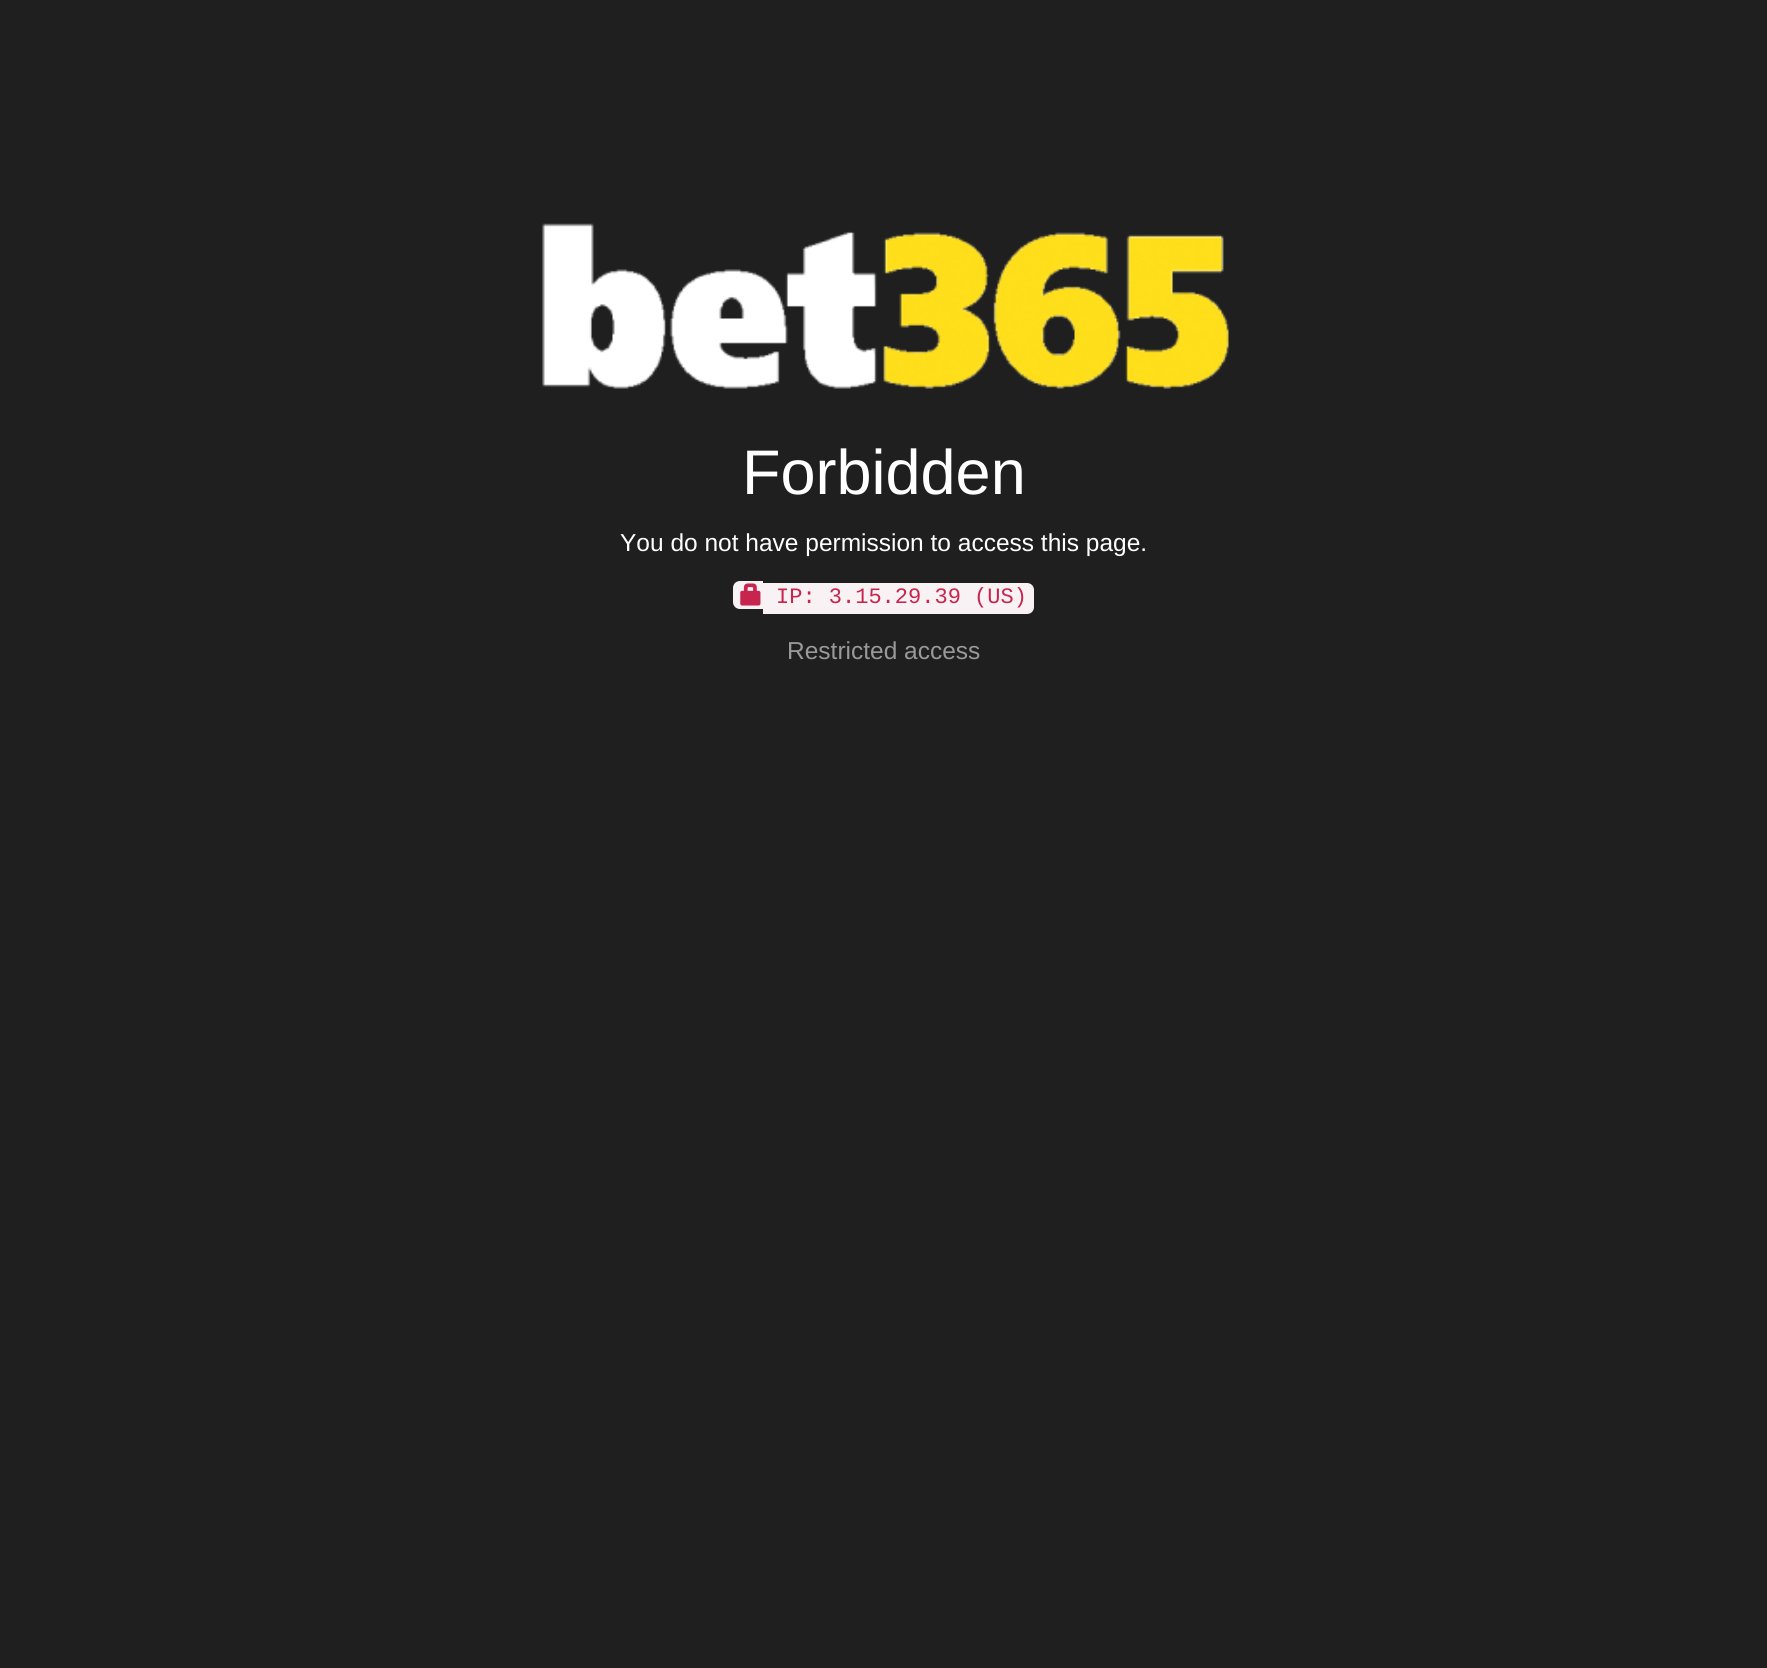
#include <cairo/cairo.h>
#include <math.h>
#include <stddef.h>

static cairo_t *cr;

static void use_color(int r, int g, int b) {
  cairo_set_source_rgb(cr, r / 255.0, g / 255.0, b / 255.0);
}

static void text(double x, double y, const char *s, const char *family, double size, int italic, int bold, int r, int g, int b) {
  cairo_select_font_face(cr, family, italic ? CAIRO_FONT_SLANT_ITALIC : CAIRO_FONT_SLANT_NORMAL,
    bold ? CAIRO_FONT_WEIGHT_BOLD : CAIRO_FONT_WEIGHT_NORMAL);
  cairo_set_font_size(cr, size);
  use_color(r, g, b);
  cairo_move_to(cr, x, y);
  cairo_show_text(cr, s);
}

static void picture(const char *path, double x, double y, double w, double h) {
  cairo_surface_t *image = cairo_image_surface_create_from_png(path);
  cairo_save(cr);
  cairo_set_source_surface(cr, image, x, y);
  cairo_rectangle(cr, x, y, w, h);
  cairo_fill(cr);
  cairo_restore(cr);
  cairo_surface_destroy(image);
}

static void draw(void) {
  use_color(31, 31, 31);
  cairo_paint(cr);
  picture("img_01.png", 542, 223, 687, 166);
  use_color(249, 242, 244);
  cairo_new_path(cr);
  cairo_move_to(cr, 740, 581);
  cairo_line_to(cr, 763, 581);
  cairo_line_to(cr, 763, 609);
  cairo_line_to(cr, 740, 609);
  cairo_curve_to(cr, 736, 609, 733, 606, 733, 602);
  cairo_line_to(cr, 733, 588);
  cairo_curve_to(cr, 733, 584, 736, 581, 740, 581);
  cairo_close_path(cr);
  cairo_fill(cr);
  cairo_new_path(cr);
  cairo_move_to(cr, 763, 583);
  cairo_line_to(cr, 1027, 583);
  cairo_curve_to(cr, 1031, 583, 1034, 586, 1034, 590);
  cairo_line_to(cr, 1034, 607);
  cairo_curve_to(cr, 1034, 611, 1031, 614, 1027, 614);
  cairo_line_to(cr, 763, 614);
  cairo_close_path(cr);
  cairo_fill(cr);
  picture("img_02.png", 740, 583, 21, 23);
  text(742, 494, "Forbidden", "Liberation Sans", 63, 0, 0, 255, 255, 255);
  text(620, 551, "You do not have permission to access this page.", "Liberation Sans", 24.5, 0, 0, 255, 255, 255);
  text(776, 603, "IP: 3.15.29.39 (US)", "Liberation Mono", 22, 0, 0, 199, 37, 78);
  text(787, 659, "Restricted access", "Liberation Sans", 24.5, 0, 0, 153, 153, 153);
}

int main(void) {
  cairo_surface_t *surface = cairo_image_surface_create(CAIRO_FORMAT_RGB24, 1767, 1668);
  cr = cairo_create(surface);
  cairo_font_options_t *options = cairo_font_options_create();
  cairo_font_options_set_hint_metrics(options, CAIRO_HINT_METRICS_OFF);
  cairo_font_options_set_hint_style(options, CAIRO_HINT_STYLE_NONE);
  cairo_set_font_options(cr, options);
  cairo_set_miter_limit(cr, 4);
  draw();
  cairo_surface_write_to_png(surface, "out.png");
  cairo_font_options_destroy(options);
  cairo_destroy(cr);
  cairo_surface_destroy(surface);
  return 0;
}
